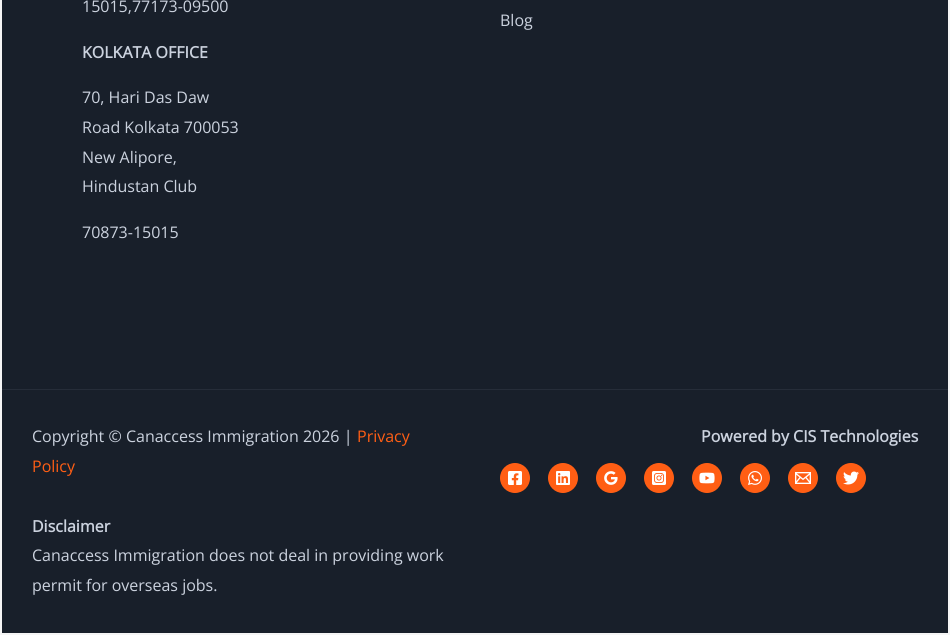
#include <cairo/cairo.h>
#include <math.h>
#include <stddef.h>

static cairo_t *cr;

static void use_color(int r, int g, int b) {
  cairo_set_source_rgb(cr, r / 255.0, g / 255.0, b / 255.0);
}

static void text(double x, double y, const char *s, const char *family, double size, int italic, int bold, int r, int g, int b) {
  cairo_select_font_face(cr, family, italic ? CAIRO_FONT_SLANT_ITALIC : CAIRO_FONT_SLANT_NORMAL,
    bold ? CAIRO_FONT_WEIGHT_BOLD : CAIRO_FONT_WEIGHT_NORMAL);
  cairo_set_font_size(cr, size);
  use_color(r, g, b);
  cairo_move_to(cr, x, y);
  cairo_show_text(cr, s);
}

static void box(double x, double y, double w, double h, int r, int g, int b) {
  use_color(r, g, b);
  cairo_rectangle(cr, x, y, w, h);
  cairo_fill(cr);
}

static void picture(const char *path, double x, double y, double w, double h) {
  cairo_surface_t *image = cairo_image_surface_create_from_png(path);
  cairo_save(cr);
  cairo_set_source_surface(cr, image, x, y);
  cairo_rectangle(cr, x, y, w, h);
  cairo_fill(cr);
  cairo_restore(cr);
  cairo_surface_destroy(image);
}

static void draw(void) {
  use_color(245, 245, 245);
  cairo_paint(cr);
  box(2, 0, 946, 389, 24, 31, 42);
  box(2, 390, 946, 243, 24, 31, 42);
  box(2, 389, 946, 1, 38, 45, 57);
  use_color(255, 94, 20);
  cairo_arc(cr, 515, 478, 15, 0, 2 * M_PI);
  cairo_fill(cr);
  picture("img_01.png", 508, 471, 14, 14);
  cairo_arc(cr, 563, 478, 15, 0, 2 * M_PI);
  cairo_fill(cr);
  picture("img_02.png", 556, 471, 14, 14);
  cairo_arc(cr, 611, 478, 15, 0, 2 * M_PI);
  cairo_fill(cr);
  picture("img_03.png", 604, 471, 14, 14);
  cairo_arc(cr, 659, 478, 15, 0, 2 * M_PI);
  cairo_fill(cr);
  picture("img_04.png", 652, 471, 14, 14);
  cairo_arc(cr, 707, 478, 15, 0, 2 * M_PI);
  cairo_fill(cr);
  picture("img_05.png", 699, 472, 16, 12);
  cairo_arc(cr, 755, 478, 15, 0, 2 * M_PI);
  cairo_fill(cr);
  picture("img_06.png", 748, 471, 14, 14);
  cairo_arc(cr, 803, 478, 15, 0, 2 * M_PI);
  cairo_fill(cr);
  picture("img_07.png", 795, 472, 16, 12);
  cairo_arc(cr, 851, 478, 15, 0, 2 * M_PI);
  cairo_fill(cr);
  picture("img_08.png", 843, 471, 16, 14);
  text(82, 12, "15015,77173-09500", "Open Sans", 16, 0, 0, 203, 210, 222);
  text(82, 58, "KOLKATA OFFICE", "Open Sans", 16, 0, 1, 203, 210, 222);
  text(82, 103, "70, Hari Das Daw", "Open Sans", 16, 0, 0, 203, 210, 222);
  text(82, 133, "Road Kolkata 700053", "Open Sans", 16, 0, 0, 203, 210, 222);
  text(82, 163, "New Alipore,", "Open Sans", 16, 0, 0, 203, 210, 222);
  text(82, 192, "Hindustan Club", "Open Sans", 16, 0, 0, 203, 210, 222);
  text(82, 238, "70873-15015", "Open Sans", 16, 0, 0, 203, 210, 222);
  text(500, 26, "Blog", "Open Sans", 16, 0, 0, 203, 210, 222);
  text(32, 442, "Copyright © Canaccess Immigration 2026 |", "Open Sans", 16, 0, 0, 203, 210, 222);
  text(357, 442, "Privacy", "Open Sans", 16, 0, 0, 255, 94, 20);
  text(32, 472, "Policy", "Open Sans", 16, 0, 0, 255, 94, 20);
  text(32, 532, "Disclaimer", "Open Sans", 16, 0, 1, 203, 210, 222);
  text(32, 561, "Canaccess Immigration does not deal in providing work", "Open Sans", 16, 0, 0, 203, 210, 222);
  text(32, 591, "permit for overseas jobs.", "Open Sans", 16, 0, 0, 203, 210, 222);
  text(701, 442, "Powered by CIS Technologies", "Open Sans", 16, 0, 1, 203, 210, 222);
}

int main(void) {
  cairo_surface_t *surface = cairo_image_surface_create(CAIRO_FORMAT_RGB24, 950, 635);
  cr = cairo_create(surface);
  cairo_font_options_t *options = cairo_font_options_create();
  cairo_font_options_set_hint_metrics(options, CAIRO_HINT_METRICS_OFF);
  cairo_font_options_set_hint_style(options, CAIRO_HINT_STYLE_NONE);
  cairo_set_font_options(cr, options);
  cairo_set_miter_limit(cr, 4);
  draw();
  cairo_surface_write_to_png(surface, "out.png");
  cairo_font_options_destroy(options);
  cairo_destroy(cr);
  cairo_surface_destroy(surface);
  return 0;
}
